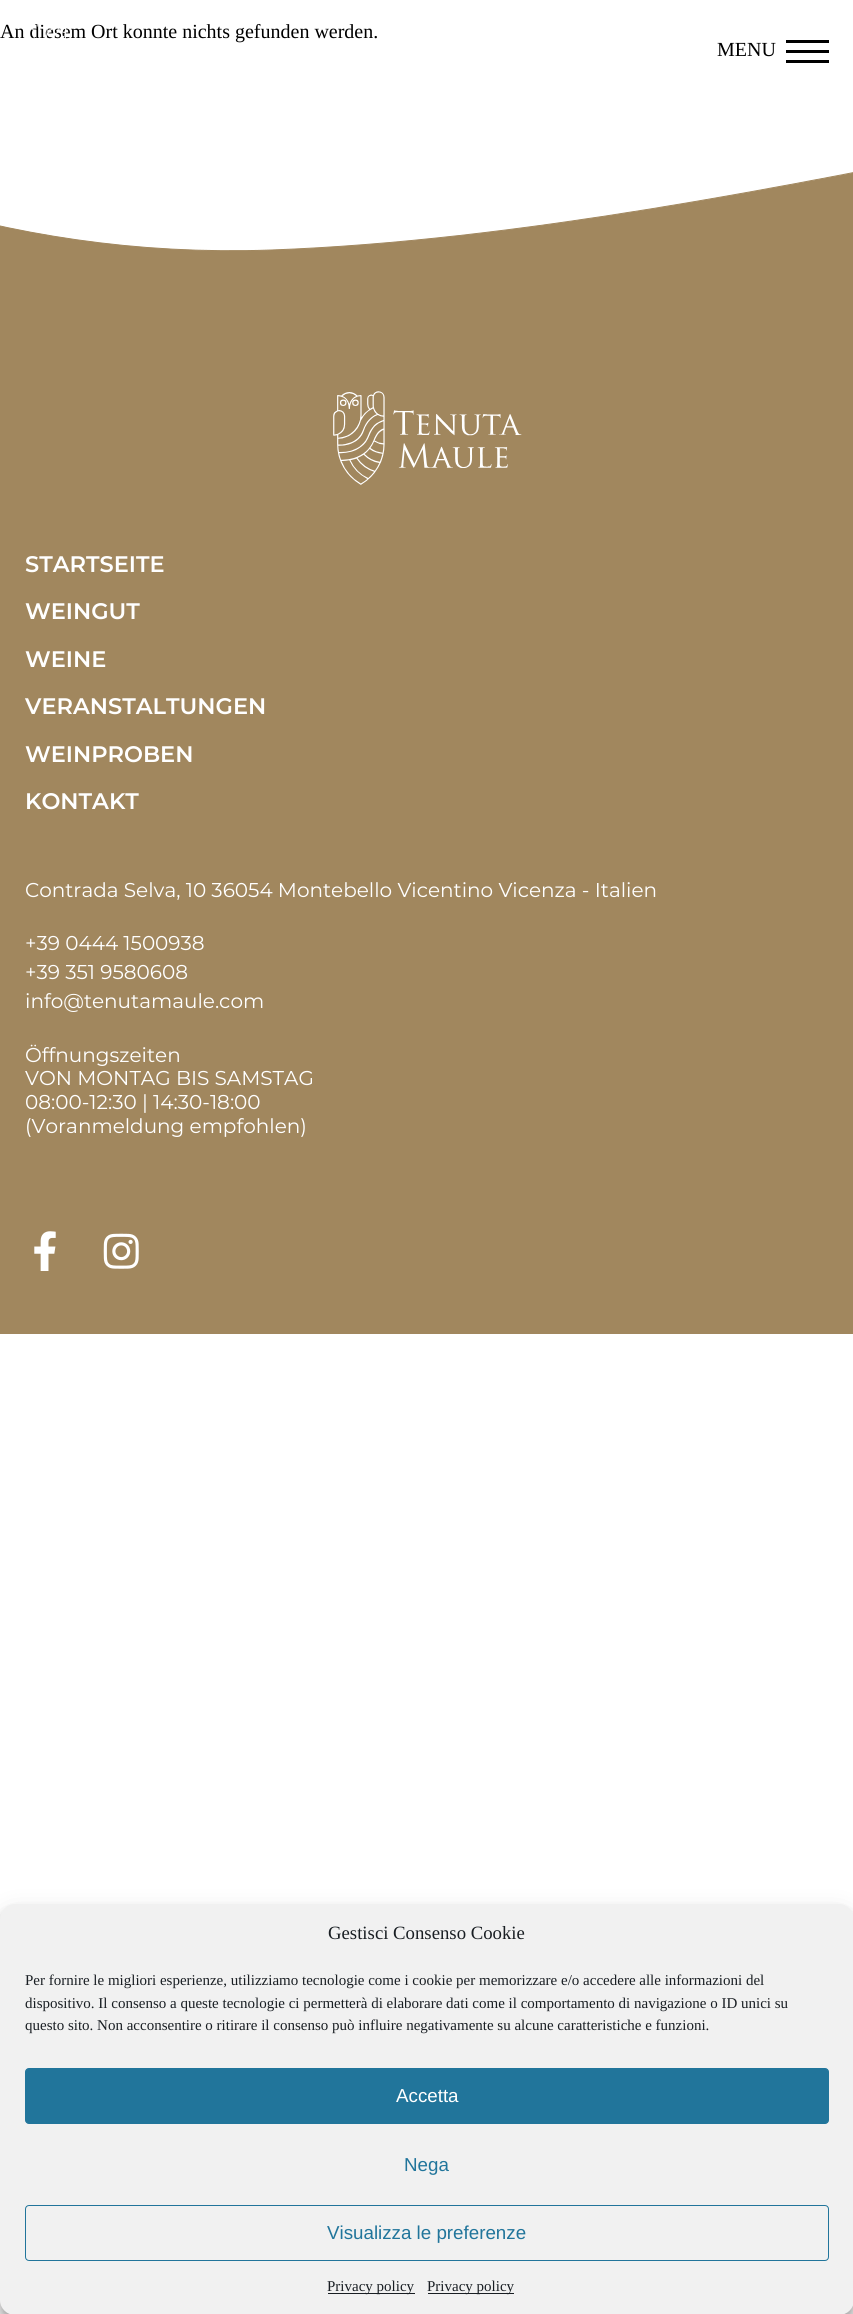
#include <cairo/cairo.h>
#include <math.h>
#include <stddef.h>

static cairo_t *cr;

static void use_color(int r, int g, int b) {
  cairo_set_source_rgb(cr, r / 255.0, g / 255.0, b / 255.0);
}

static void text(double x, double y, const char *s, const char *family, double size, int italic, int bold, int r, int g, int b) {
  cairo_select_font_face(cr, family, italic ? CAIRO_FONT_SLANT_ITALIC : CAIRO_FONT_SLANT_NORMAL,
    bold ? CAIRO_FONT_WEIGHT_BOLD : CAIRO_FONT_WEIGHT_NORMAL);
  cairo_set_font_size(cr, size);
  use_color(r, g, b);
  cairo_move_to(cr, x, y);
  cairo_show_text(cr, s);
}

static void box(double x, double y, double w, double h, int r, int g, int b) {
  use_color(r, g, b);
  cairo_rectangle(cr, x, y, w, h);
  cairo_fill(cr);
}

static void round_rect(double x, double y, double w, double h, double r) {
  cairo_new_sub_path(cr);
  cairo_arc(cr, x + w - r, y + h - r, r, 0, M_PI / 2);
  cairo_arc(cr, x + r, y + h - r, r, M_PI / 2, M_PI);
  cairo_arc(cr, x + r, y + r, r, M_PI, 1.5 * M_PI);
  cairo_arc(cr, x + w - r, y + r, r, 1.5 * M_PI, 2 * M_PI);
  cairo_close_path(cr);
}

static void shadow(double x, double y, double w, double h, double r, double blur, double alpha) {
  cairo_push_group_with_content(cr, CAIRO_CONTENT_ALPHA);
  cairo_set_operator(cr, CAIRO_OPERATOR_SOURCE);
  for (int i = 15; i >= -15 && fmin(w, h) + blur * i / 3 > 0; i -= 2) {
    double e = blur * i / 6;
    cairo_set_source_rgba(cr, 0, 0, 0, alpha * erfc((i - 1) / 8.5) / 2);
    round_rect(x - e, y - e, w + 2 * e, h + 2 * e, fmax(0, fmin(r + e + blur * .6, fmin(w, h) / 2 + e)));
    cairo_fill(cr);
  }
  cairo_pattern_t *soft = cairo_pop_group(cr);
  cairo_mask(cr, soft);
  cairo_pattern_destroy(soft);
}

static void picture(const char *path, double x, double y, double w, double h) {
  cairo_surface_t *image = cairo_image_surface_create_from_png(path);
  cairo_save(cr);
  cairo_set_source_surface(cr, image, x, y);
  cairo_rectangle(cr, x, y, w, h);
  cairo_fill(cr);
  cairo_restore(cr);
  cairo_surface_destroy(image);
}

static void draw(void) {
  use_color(255, 255, 255);
  cairo_paint(cr);
  box(786, 40, 43, 3, 0, 0, 0);
  box(786, 50, 43, 3, 0, 0, 0);
  box(786, 60, 43, 3, 0, 0, 0);
  use_color(161, 135, 94);
  cairo_new_path(cr);
  cairo_move_to(cr, -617, 337);
  cairo_line_to(cr, -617, -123);
  cairo_curve_to(cr, -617, -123, -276, 270, 272, 250);
  cairo_curve_to(cr, 763, 232, 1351, 31, 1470, 95);
  cairo_line_to(cr, 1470, 337);
  cairo_close_path(cr);
  cairo_fill(cr);
  cairo_new_path(cr);
  cairo_move_to(cr, -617.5, 337);
  cairo_line_to(cr, -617.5, -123.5);
  cairo_curve_to(cr, -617.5, -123.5, -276, 270, 271.5, 250);
  cairo_curve_to(cr, 763, 232, 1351, 30.5, 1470, 95.5);
  cairo_line_to(cr, 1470, 337);
  cairo_close_path(cr);
  cairo_set_line_width(cr, 1);
  cairo_stroke(cr);
  box(0, 337, 853, 997, 161, 135, 94);
  picture("img_02.png", 333, 391, 189, 94);
  picture("img_03.png", 34, 1231, 22, 40);
  picture("img_04.png", 103, 1233, 36, 36);
  use_color(0, 0, 0);
  shadow(0, 1911, 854, 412, 15, 4, 0.23);
  shadow(0, 1916, 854, 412, 15, 12.5, 0.19);
  use_color(241, 241, 241);
  round_rect(0, 1904, 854, 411, 15);
  cairo_fill(cr);
  use_color(33, 117, 155);
  round_rect(25.5, 2068.5, 803, 55, 3.5);
  cairo_fill_preserve(cr);
  cairo_stroke(cr);
  round_rect(25.5, 2205.5, 803, 55, 3.5);
  cairo_stroke(cr);
  box(328, 2293, 87, 1, 25, 30, 35);
  box(428, 2293, 86, 1, 25, 30, 35);
  text(0, 38, "An diesem Ort konnte nichts gefunden werden.", "Liberation Serif", 20, 0, 0, 0, 0, 0);
  picture("img_01.png", 31, 24, 35, 15);
  text(717, 56, "MENU", "Liberation Serif", 20, 0, 0, 0, 0, 0);
  text(25, 572, "STARTSEITE", "Montserrat SemiBold", 22.5, 0, 0, 255, 255, 255);
  text(25, 619, "WEINGUT", "Montserrat SemiBold", 22.5, 0, 0, 255, 255, 255);
  text(25, 667, "WEINE", "Montserrat SemiBold", 22.5, 0, 0, 255, 255, 255);
  text(25, 714, "VERANSTALTUNGEN", "Montserrat SemiBold", 22.5, 0, 0, 255, 255, 255);
  text(25, 762, "WEINPROBEN", "Montserrat SemiBold", 22.5, 0, 0, 255, 255, 255);
  text(25, 809, "KONTAKT", "Montserrat SemiBold", 22.5, 0, 0, 255, 255, 255);
  text(25, 897, "Contrada Selva, 10 36054 Montebello Vicentino Vicenza - Italien", "Montserrat", 20, 0, 0, 255, 255, 255);
  text(25, 950, "+39 0444 1500938", "Montserrat", 20, 0, 0, 255, 255, 255);
  text(25, 979, "+39 351 9580608", "Montserrat", 20, 0, 0, 255, 255, 255);
  text(25, 1008, "info@tenutamaule.com", "Montserrat", 20, 0, 0, 255, 255, 255);
  text(25, 1062, "Öffnungszeiten", "Montserrat", 20, 0, 0, 255, 255, 255);
  text(25, 1085, "VON MONTAG BIS SAMSTAG", "Montserrat", 20, 0, 0, 255, 255, 255);
  text(25, 1109, "08:00-12:30 | 14:30-18:00", "Montserrat", 20, 0, 0, 255, 255, 255);
  text(25, 1133, "(Voranmeldung empfohlen)", "Montserrat", 20, 0, 0, 255, 255, 255);
  text(328, 1939, "Gestisci Consenso Cookie", "Liberation Serif", 18.75, 0, 0, 25, 30, 35);
  text(25, 1985, "Per fornire le migliori esperienze, utilizziamo tecnologie come i cookie per memorizzare e/o accedere alle informazioni del", "Liberation Serif", 15, 0, 0, 25, 30, 35);
  text(25, 2008, "dispositivo. Il consenso a queste tecnologie ci permetterà di elaborare dati come il comportamento di navigazione o ID unici su", "Liberation Serif", 15, 0, 0, 25, 30, 35);
  text(25, 2030, "questo sito. Non acconsentire o ritirare il consenso può influire negativamente su alcune caratteristiche e funzioni.", "Liberation Serif", 15, 0, 0, 25, 30, 35);
  text(396, 2102, "Accetta", "Liberation Sans", 18.75, 0, 0, 255, 255, 255);
  text(404, 2171, "Nega", "Liberation Sans", 18.75, 0, 0, 33, 117, 155);
  text(327, 2239, "Visualizza le preferenze", "Liberation Sans", 18.75, 0, 0, 33, 117, 155);
  text(327, 2291, "Privacy policy", "Liberation Serif", 15, 0, 0, 25, 30, 35);
  text(427, 2291, "Privacy policy", "Liberation Serif", 15, 0, 0, 25, 30, 35);
}

int main(void) {
  cairo_surface_t *surface = cairo_image_surface_create(CAIRO_FORMAT_RGB24, 853, 2314);
  cr = cairo_create(surface);
  cairo_font_options_t *options = cairo_font_options_create();
  cairo_font_options_set_hint_metrics(options, CAIRO_HINT_METRICS_OFF);
  cairo_font_options_set_hint_style(options, CAIRO_HINT_STYLE_NONE);
  cairo_set_font_options(cr, options);
  cairo_set_miter_limit(cr, 4);
  draw();
  cairo_surface_write_to_png(surface, "out.png");
  cairo_font_options_destroy(options);
  cairo_destroy(cr);
  cairo_surface_destroy(surface);
  return 0;
}
